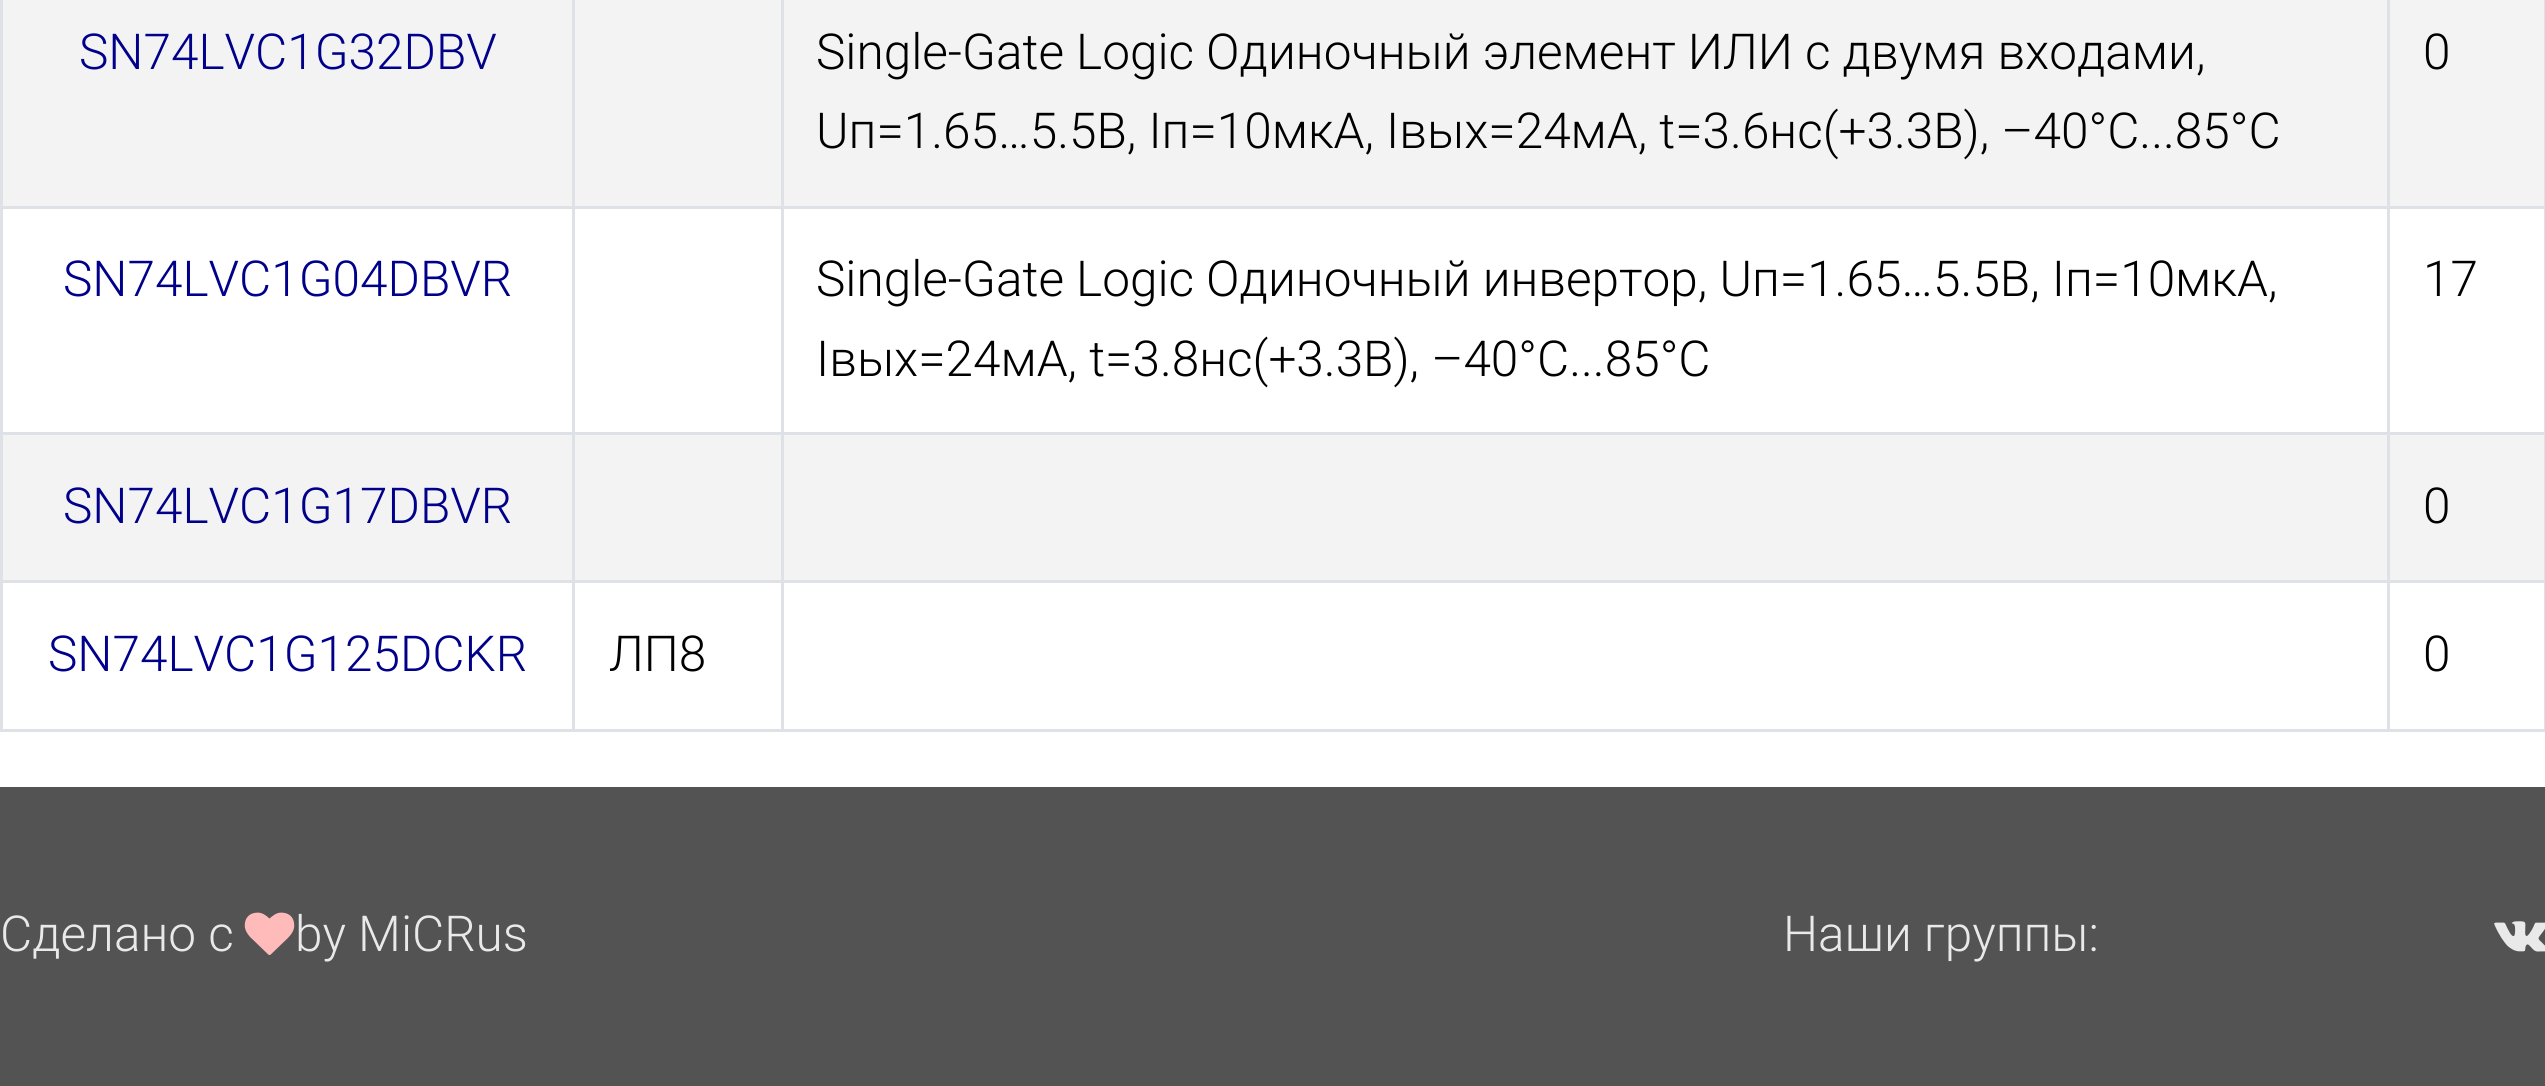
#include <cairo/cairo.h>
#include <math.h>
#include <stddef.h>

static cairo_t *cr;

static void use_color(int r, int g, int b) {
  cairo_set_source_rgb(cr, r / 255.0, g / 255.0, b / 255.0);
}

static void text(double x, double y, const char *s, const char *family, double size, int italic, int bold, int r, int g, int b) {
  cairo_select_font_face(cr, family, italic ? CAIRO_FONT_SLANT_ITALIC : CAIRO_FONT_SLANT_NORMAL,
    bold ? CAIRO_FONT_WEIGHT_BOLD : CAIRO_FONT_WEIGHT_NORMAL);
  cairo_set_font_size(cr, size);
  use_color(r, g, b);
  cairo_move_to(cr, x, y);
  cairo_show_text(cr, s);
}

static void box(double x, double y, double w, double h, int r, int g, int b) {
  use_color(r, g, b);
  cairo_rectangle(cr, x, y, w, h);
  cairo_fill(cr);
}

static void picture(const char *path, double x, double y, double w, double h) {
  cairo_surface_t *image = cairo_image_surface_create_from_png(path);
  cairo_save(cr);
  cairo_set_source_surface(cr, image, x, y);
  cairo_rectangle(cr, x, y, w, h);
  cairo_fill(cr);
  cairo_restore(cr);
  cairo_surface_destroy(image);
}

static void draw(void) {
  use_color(255, 255, 255);
  cairo_paint(cr);
  box(2544, 0, 1, 732, 222, 226, 230);
  box(0, 729, 2545, 3, 222, 226, 230);
  box(0, 0, 3, 732, 222, 226, 230);
  box(3, 0, 2541, 206, 243, 243, 243);
  box(2387, 206, 158, 3, 222, 226, 230);
  box(2387, 432, 158, 3, 222, 226, 230);
  box(3, 435, 2541, 145, 243, 243, 243);
  box(2387, 580, 158, 3, 222, 226, 230);
  box(2387, 580, 3, 152, 222, 226, 230);
  box(781, 580, 1609, 3, 222, 226, 230);
  box(2387, 432, 3, 151, 222, 226, 230);
  box(781, 432, 1609, 3, 222, 226, 230);
  box(2387, 206, 3, 229, 222, 226, 230);
  box(781, 206, 1609, 3, 222, 226, 230);
  box(781, 580, 3, 152, 222, 226, 230);
  box(572, 580, 212, 3, 222, 226, 230);
  box(781, 432, 3, 151, 222, 226, 230);
  box(572, 432, 212, 3, 222, 226, 230);
  box(781, 206, 3, 229, 222, 226, 230);
  box(572, 206, 212, 3, 222, 226, 230);
  box(572, 580, 3, 152, 222, 226, 230);
  box(0, 580, 575, 3, 222, 226, 230);
  box(572, 432, 3, 151, 222, 226, 230);
  box(0, 432, 575, 3, 222, 226, 230);
  box(572, 206, 3, 229, 222, 226, 230);
  box(0, 206, 575, 3, 222, 226, 230);
  box(572, 0, 3, 209, 222, 226, 230);
  box(781, 0, 3, 209, 222, 226, 230);
  box(2387, 0, 3, 209, 222, 226, 230);
  box(0, 787, 2545, 299, 83, 83, 83);
  picture("img_01.png", 244, 912, 51, 43);
  picture("img_02.png", 2494, 921, 51, 31);
  text(79, 69, "SN74LVC1G32DBV", "Roboto Light", 49.5, 0, 0, 0, 0, 139);
  text(816, 69, "Single-Gate Logic Одиночный элемент ИЛИ с двумя входами,", "Roboto Light", 49.5, 0, 0, 0, 0, 0);
  text(816, 148, "Uп=1.65…5.5В, Iп=10мкА, Iвых=24мА, t=3.6нс(+3.3В), –40°C...85°C", "Roboto Light", 49.5, 0, 0, 0, 0, 0);
  text(2423, 69, "0", "Roboto Light", 49.5, 0, 0, 0, 0, 0);
  text(63, 296, "SN74LVC1G04DBVR", "Roboto Light", 49.5, 0, 0, 0, 0, 139);
  text(816, 296, "Single-Gate Logic Одиночный инвертор, Uп=1.65…5.5В, Iп=10мкА,", "Roboto Light", 49.5, 0, 0, 0, 0, 0);
  text(816, 376, "Iвых=24мА, t=3.8нс(+3.3В), –40°C...85°C", "Roboto Light", 49.5, 0, 0, 0, 0, 0);
  text(2423, 296, "17", "Roboto Light", 49.5, 0, 0, 0, 0, 0);
  text(63, 523, "SN74LVC1G17DBVR", "Roboto Light", 49.5, 0, 0, 0, 0, 139);
  text(2423, 523, "0", "Roboto Light", 49.5, 0, 0, 0, 0, 0);
  text(48, 671, "SN74LVC1G125DCKR", "Roboto Light", 49.5, 0, 0, 0, 0, 139);
  text(609, 671, "ЛП8", "Roboto Light", 49.5, 0, 0, 0, 0, 0);
  text(2423, 671, "0", "Roboto Light", 49.5, 0, 0, 0, 0, 0);
  text(0, 951, "Сделано с", "Roboto Light", 49.5, 0, 0, 233, 233, 233);
  text(295, 951, "by MiCRus", "Roboto Light", 49.5, 0, 0, 233, 233, 233);
  text(1783, 951, "Наши группы:", "Roboto Light", 49.5, 0, 0, 233, 233, 233);
}

int main(void) {
  cairo_surface_t *surface = cairo_image_surface_create(CAIRO_FORMAT_RGB24, 2545, 1086);
  cr = cairo_create(surface);
  cairo_font_options_t *options = cairo_font_options_create();
  cairo_font_options_set_hint_metrics(options, CAIRO_HINT_METRICS_OFF);
  cairo_font_options_set_hint_style(options, CAIRO_HINT_STYLE_NONE);
  cairo_set_font_options(cr, options);
  cairo_set_miter_limit(cr, 4);
  draw();
  cairo_surface_write_to_png(surface, "out.png");
  cairo_font_options_destroy(options);
  cairo_destroy(cr);
  cairo_surface_destroy(surface);
  return 0;
}
